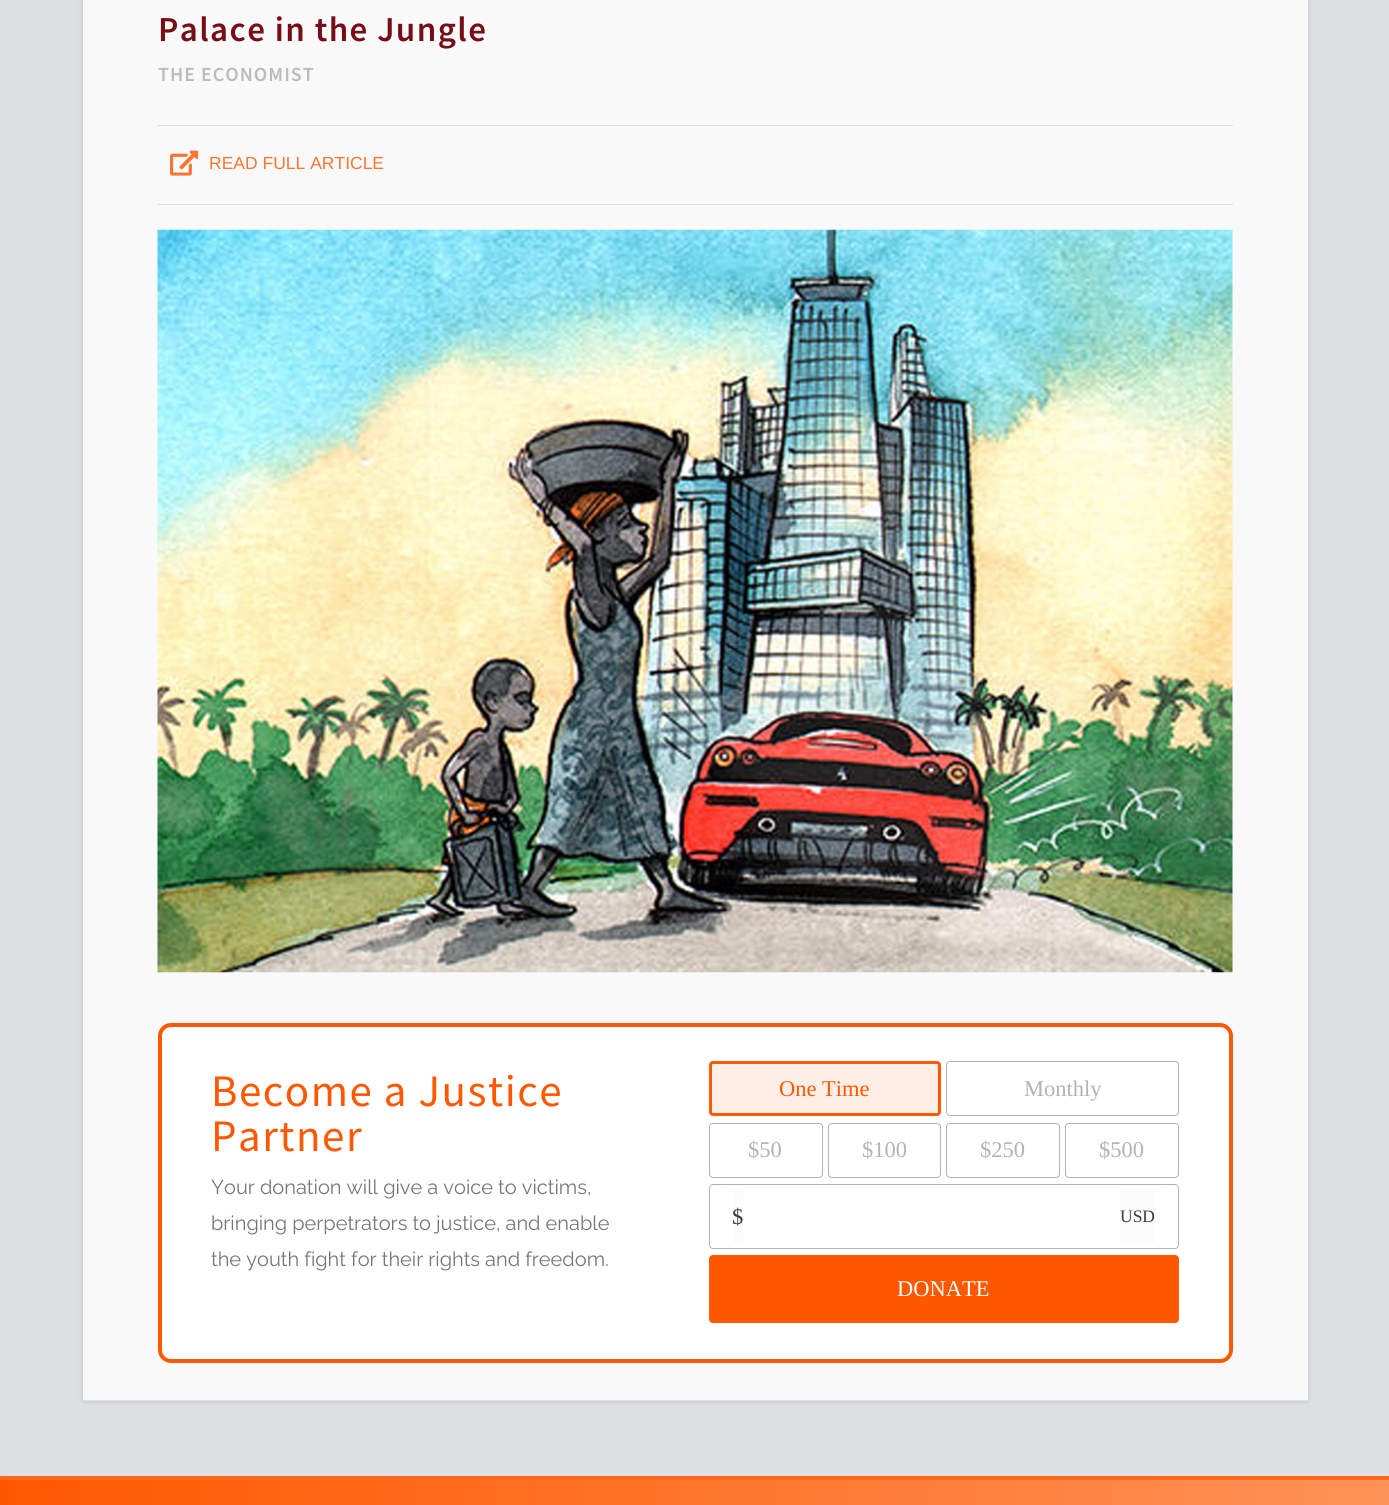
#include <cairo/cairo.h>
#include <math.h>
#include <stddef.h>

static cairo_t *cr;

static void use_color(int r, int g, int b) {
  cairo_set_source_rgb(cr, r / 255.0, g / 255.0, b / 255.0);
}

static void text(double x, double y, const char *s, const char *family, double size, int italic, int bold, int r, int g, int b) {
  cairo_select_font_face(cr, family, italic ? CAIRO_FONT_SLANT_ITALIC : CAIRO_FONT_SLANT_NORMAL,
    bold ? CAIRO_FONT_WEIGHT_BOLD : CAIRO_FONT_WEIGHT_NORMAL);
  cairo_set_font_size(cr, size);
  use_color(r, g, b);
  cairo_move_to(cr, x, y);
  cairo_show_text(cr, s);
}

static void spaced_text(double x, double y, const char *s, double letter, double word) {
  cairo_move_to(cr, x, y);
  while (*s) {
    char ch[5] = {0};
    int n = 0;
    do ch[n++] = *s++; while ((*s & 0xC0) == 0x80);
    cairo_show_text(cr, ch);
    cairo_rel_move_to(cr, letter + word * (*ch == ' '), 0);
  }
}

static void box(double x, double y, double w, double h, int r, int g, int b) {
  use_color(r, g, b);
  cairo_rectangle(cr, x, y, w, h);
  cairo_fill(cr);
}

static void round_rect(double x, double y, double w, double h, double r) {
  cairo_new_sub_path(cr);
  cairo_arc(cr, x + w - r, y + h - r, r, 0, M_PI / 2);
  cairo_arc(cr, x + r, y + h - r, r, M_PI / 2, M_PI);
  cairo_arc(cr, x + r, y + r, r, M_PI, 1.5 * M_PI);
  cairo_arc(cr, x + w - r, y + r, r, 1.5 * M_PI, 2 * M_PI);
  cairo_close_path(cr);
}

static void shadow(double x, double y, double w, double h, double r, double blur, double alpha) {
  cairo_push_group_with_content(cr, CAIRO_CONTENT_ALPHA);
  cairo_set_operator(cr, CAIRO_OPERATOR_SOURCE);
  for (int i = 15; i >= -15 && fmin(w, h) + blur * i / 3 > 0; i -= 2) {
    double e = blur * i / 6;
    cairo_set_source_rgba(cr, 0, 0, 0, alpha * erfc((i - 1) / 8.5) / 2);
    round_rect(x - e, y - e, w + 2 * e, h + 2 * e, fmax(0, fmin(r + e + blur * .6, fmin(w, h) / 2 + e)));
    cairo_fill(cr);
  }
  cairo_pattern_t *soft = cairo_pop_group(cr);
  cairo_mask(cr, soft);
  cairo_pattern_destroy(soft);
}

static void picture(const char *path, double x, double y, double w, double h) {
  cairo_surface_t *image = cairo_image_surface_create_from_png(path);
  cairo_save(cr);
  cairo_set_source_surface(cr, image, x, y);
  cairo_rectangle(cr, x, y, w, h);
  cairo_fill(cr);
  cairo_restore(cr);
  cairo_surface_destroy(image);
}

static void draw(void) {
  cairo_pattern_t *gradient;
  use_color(220, 224, 226);
  cairo_paint(cr);
  use_color(74, 74, 74);
  shadow(83, -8, 1225, 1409, 0, 2.5, 0.21);
  box(83, 0, 1225, 1400, 249, 249, 249);
  box(83, 1400, 1225, 1, 220, 224, 226);
  box(158, 125, 1075, 1, 220, 224, 226);
  box(158, 204, 1075, 1, 220, 224, 226);
  picture("img_01.png", 170, 150, 29, 26);
  picture("img_02.png", 157, 229, 1076, 744);
  use_color(255, 255, 255);
  round_rect(160, 1025, 1071, 336, 11);
  cairo_fill_preserve(cr);
  use_color(255, 88, 0);
  cairo_set_line_width(cr, 4);
  cairo_stroke(cr);
  use_color(255, 238, 230);
  round_rect(710.5, 1062.5, 229, 52, 2.5);
  cairo_fill_preserve(cr);
  use_color(255, 88, 0);
  cairo_set_line_width(cr, 3);
  cairo_stroke(cr);
  round_rect(946.5, 1061.5, 232, 54, 3.5);
  use_color(178, 179, 181);
  cairo_set_line_width(cr, 1);
  cairo_stroke(cr);
  round_rect(709.5, 1123.5, 113, 54, 3.5);
  cairo_stroke(cr);
  round_rect(828.5, 1123.5, 112, 54, 3.5);
  cairo_stroke(cr);
  round_rect(946.5, 1123.5, 113, 54, 3.5);
  cairo_stroke(cr);
  round_rect(1065.5, 1123.5, 113, 54, 3.5);
  cairo_stroke(cr);
  round_rect(709.5, 1184.5, 469, 64, 3.5);
  cairo_stroke(cr);
  use_color(255, 255, 255);
  round_rect(710, 1185, 468, 63, 4);
  cairo_fill(cr);
  box(733, 1188, 11, 57, 252, 252, 252);
  box(1120, 1188, 35, 57, 252, 252, 252);
  use_color(255, 88, 0);
  round_rect(709, 1255, 470, 68, 4);
  cairo_fill(cr);
  gradient = cairo_pattern_create_linear(0, 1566, 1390, 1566);
  cairo_pattern_add_color_stop_rgba(gradient, 0, 1, 0.345, 0, 1);
  cairo_pattern_add_color_stop_rgba(gradient, 1, 1, 0.573, 0.345, 1);
  cairo_set_source(cr, gradient);
  cairo_pattern_destroy(gradient);
  cairo_rectangle(cr, 0, 1480, 1389, 25);
  cairo_fill(cr);
  box(0, 1476, 1389, 4, 254, 103, 23);
  cairo_select_font_face(cr, "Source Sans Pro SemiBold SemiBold", CAIRO_FONT_SLANT_NORMAL, CAIRO_FONT_WEIGHT_NORMAL);
  cairo_set_font_size(cr, 35);
  use_color(118, 13, 23);
  spaced_text(158, 41, "Palace in the Jungle", 1.4, 0);
  cairo_set_font_size(cr, 20);
  use_color(187, 187, 187);
  spaced_text(158, 81, "THE ECONOMIST", 1, 0);
  text(209, 169, "READ FULL ARTICLE", "Liberation Sans", 17.5, 0, 0, 249, 118, 50);
  cairo_select_font_face(cr, "Source Sans Pro", CAIRO_FONT_SLANT_NORMAL, CAIRO_FONT_WEIGHT_NORMAL);
  cairo_set_font_size(cr, 45);
  use_color(255, 88, 0);
  spaced_text(211, 1106, "Become a Justice", 1.5, 0);
  spaced_text(211, 1151, "Partner", 1.5, 0);
  text(211, 1194, "Your donation will give a voice to victims,", "Raleway", 20, 0, 0, 118, 118, 118);
  text(211, 1230, "bringing perpetrators to justice, and enable", "Raleway", 20, 0, 0, 118, 118, 118);
  text(211, 1266, "the youth fight for their rights and freedom.", "Raleway", 20, 0, 0, 118, 118, 118);
  text(779, 1096, "One Time", "Liberation Serif", 22.5, 0, 0, 255, 88, 0);
  text(1024, 1096, "Monthly", "Liberation Serif", 22.5, 0, 0, 178, 179, 181);
  text(748, 1157, "$50", "Liberation Serif", 22.5, 0, 0, 178, 179, 181);
  text(862, 1157, "$100", "Liberation Serif", 22.5, 0, 0, 178, 179, 181);
  text(980, 1157, "$250", "Liberation Serif", 22.5, 0, 0, 178, 179, 181);
  text(1099, 1157, "$500", "Liberation Serif", 22.5, 0, 0, 178, 179, 181);
  text(732, 1224, "$", "Liberation Serif", 22.5, 0, 0, 59, 59, 59);
  text(1120, 1222, "USD", "Liberation Serif", 17.5, 0, 0, 59, 59, 59);
  text(897, 1296, "DONATE", "Liberation Serif", 22.5, 0, 0, 255, 255, 255);
}

int main(void) {
  cairo_surface_t *surface = cairo_image_surface_create(CAIRO_FORMAT_RGB24, 1389, 1505);
  cr = cairo_create(surface);
  cairo_font_options_t *options = cairo_font_options_create();
  cairo_font_options_set_hint_metrics(options, CAIRO_HINT_METRICS_OFF);
  cairo_font_options_set_hint_style(options, CAIRO_HINT_STYLE_NONE);
  cairo_set_font_options(cr, options);
  cairo_set_miter_limit(cr, 4);
  draw();
  cairo_surface_write_to_png(surface, "out.png");
  cairo_font_options_destroy(options);
  cairo_destroy(cr);
  cairo_surface_destroy(surface);
  return 0;
}
